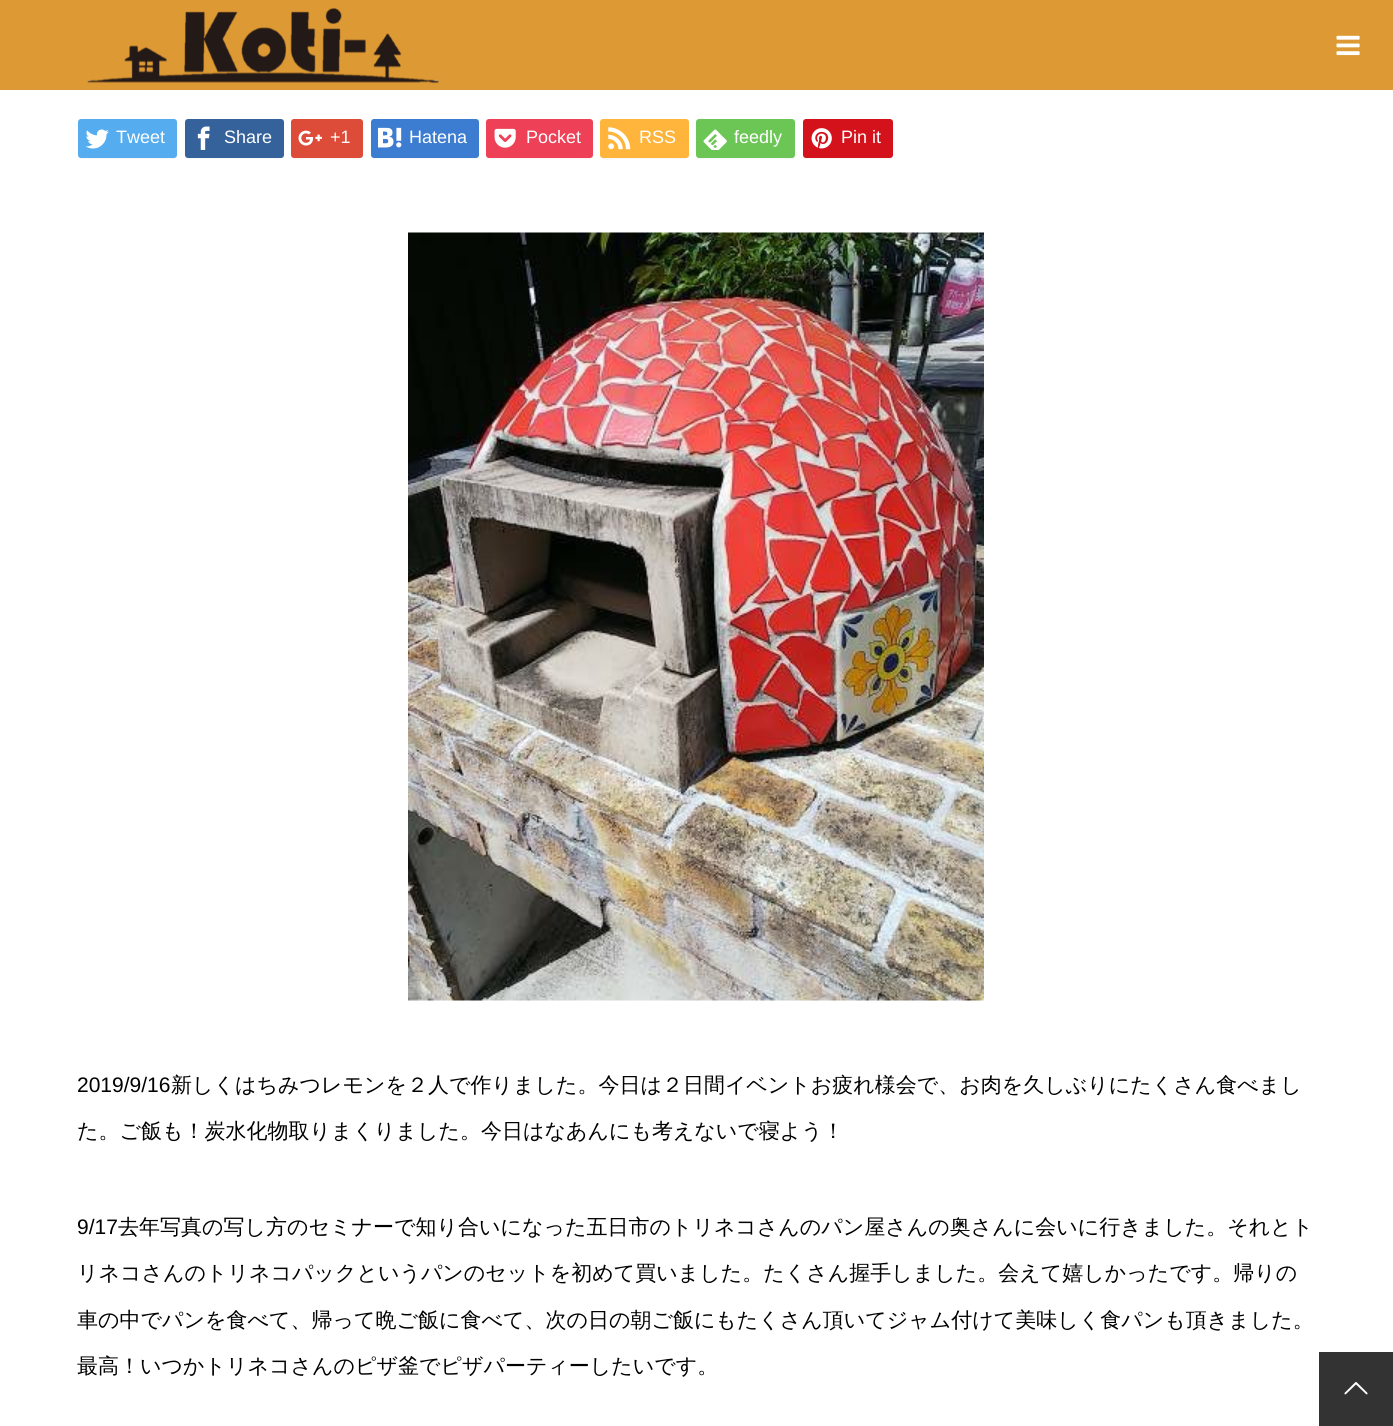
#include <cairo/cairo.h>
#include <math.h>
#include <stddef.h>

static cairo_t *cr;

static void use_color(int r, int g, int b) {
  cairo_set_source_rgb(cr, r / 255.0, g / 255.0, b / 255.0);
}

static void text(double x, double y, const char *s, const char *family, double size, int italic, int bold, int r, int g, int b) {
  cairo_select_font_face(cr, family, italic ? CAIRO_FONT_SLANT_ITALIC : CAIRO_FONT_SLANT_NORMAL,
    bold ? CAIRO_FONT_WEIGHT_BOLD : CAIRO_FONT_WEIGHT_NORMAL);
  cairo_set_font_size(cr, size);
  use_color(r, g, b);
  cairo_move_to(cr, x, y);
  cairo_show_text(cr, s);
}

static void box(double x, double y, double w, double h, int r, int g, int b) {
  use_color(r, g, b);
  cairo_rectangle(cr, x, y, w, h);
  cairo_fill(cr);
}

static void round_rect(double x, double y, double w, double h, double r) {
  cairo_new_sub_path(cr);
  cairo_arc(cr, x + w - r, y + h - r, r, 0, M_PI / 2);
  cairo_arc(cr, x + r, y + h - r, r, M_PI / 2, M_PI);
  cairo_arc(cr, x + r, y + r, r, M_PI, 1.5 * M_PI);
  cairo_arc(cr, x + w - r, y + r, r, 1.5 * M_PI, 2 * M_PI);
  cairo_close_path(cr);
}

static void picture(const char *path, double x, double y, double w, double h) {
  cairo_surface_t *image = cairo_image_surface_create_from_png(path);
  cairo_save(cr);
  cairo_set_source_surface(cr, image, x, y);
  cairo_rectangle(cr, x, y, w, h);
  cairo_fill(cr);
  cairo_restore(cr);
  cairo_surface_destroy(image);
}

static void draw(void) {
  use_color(255, 255, 255);
  cairo_paint(cr);
  box(0, 0, 1393, 90, 221, 153, 51);
  picture("img_01.png", 87, 8, 352, 76);
  picture("img_02.png", 1336, 35, 24, 21);
  use_color(247, 247, 247);
  cairo_new_path(cr);
  cairo_move_to(cr, 78, 154);
  cairo_line_to(cr, 78, 156);
  cairo_curve_to(cr, 78, 158, 79, 159, 81, 159);
  cairo_line_to(cr, 174, 159);
  cairo_curve_to(cr, 176, 159, 177, 158, 177, 156);
  cairo_line_to(cr, 177, 154);
  cairo_curve_to(cr, 177, 156, 176, 158, 174, 158);
  cairo_line_to(cr, 81, 158);
  cairo_curve_to(cr, 79, 158, 78, 156, 78, 154);
  cairo_close_path(cr);
  cairo_fill(cr);
  use_color(85, 172, 238);
  round_rect(78, 119, 99, 39, 3);
  cairo_fill(cr);
  picture("img_03.png", 85, 129, 24, 20);
  use_color(247, 247, 247);
  cairo_new_path(cr);
  cairo_move_to(cr, 185, 156);
  cairo_curve_to(cr, 185, 158, 186, 159, 188, 159);
  cairo_line_to(cr, 281, 159);
  cairo_curve_to(cr, 283, 159, 284, 158, 284, 156);
  cairo_line_to(cr, 284, 123);
  cairo_line_to(cr, 283, 121);
  cairo_line_to(cr, 284, 149);
  cairo_curve_to(cr, 284, 151, 285, 157, 280, 158);
  cairo_line_to(cr, 188, 158);
  cairo_curve_to(cr, 187, 157, 186, 157, 185, 156);
  cairo_close_path(cr);
  cairo_fill(cr);
  use_color(53, 98, 154);
  round_rect(185, 119, 99, 39, 3);
  cairo_fill(cr);
  picture("img_04.png", 197, 126, 13, 24);
  use_color(247, 247, 247);
  cairo_new_path(cr);
  cairo_move_to(cr, 291, 154);
  cairo_curve_to(cr, 291, 162, 299, 159, 305, 159);
  cairo_line_to(cr, 349, 159);
  cairo_curve_to(cr, 355, 159, 363, 162, 363, 154);
  cairo_curve_to(cr, 363, 156, 362, 158, 360, 158);
  cairo_line_to(cr, 294, 158);
  cairo_curve_to(cr, 292, 158, 291, 156, 291, 154);
  cairo_close_path(cr);
  cairo_fill(cr);
  use_color(221, 75, 57);
  round_rect(291, 119, 72, 39, 3);
  cairo_fill(cr);
  picture("img_05.png", 298, 130, 24, 16);
  use_color(247, 247, 247);
  cairo_new_path(cr);
  cairo_move_to(cr, 371, 156);
  cairo_curve_to(cr, 371, 158, 372, 159, 374, 159);
  cairo_line_to(cr, 476, 159);
  cairo_curve_to(cr, 478, 159, 479, 158, 479, 156);
  cairo_line_to(cr, 479, 123);
  cairo_line_to(cr, 478, 121);
  cairo_line_to(cr, 478, 154);
  cairo_curve_to(cr, 478, 156, 477, 158, 476, 158);
  cairo_line_to(cr, 374, 158);
  cairo_curve_to(cr, 372, 158, 372, 157, 371, 156);
  cairo_close_path(cr);
  cairo_fill(cr);
  use_color(60, 125, 209);
  round_rect(371, 119, 108, 39, 3);
  cairo_fill(cr);
  picture("img_06.png", 378, 127, 24, 21);
  use_color(247, 247, 247);
  cairo_new_path(cr);
  cairo_move_to(cr, 486, 154);
  cairo_curve_to(cr, 486, 156, 486, 158, 488, 159);
  cairo_line_to(cr, 573, 159);
  cairo_curve_to(cr, 598, 159, 593, 163, 593, 140);
  cairo_curve_to(cr, 593, 136, 594, 124, 592, 121);
  cairo_line_to(cr, 592, 149);
  cairo_curve_to(cr, 592, 151, 594, 157, 590, 158);
  cairo_line_to(cr, 506, 158);
  cairo_curve_to(cr, 500, 158, 486, 160, 486, 154);
  cairo_close_path(cr);
  cairo_fill(cr);
  use_color(238, 64, 86);
  round_rect(486, 119, 107, 39, 3);
  cairo_fill(cr);
  picture("img_07.png", 494, 128, 22, 20);
  use_color(247, 247, 247);
  cairo_new_path(cr);
  cairo_move_to(cr, 600, 154);
  cairo_curve_to(cr, 600, 163, 611, 159, 617, 159);
  cairo_line_to(cr, 672, 159);
  cairo_curve_to(cr, 694, 159, 689, 162, 689, 140);
  cairo_curve_to(cr, 689, 136, 690, 124, 688, 121);
  cairo_line_to(cr, 688, 149);
  cairo_curve_to(cr, 688, 151, 690, 157, 686, 158);
  cairo_line_to(cr, 617, 158);
  cairo_curve_to(cr, 611, 158, 600, 160, 600, 154);
  cairo_close_path(cr);
  cairo_fill(cr);
  use_color(255, 181, 60);
  round_rect(600, 119, 89, 39, 3);
  cairo_fill(cr);
  picture("img_08.png", 608, 127, 23, 23);
  use_color(247, 247, 247);
  cairo_new_path(cr);
  cairo_move_to(cr, 696, 154);
  cairo_line_to(cr, 696, 156);
  cairo_curve_to(cr, 696, 158, 697, 159, 699, 159);
  cairo_line_to(cr, 792, 159);
  cairo_curve_to(cr, 794, 159, 795, 158, 795, 156);
  cairo_line_to(cr, 795, 154);
  cairo_curve_to(cr, 795, 156, 794, 158, 792, 158);
  cairo_line_to(cr, 699, 158);
  cairo_curve_to(cr, 697, 158, 696, 156, 696, 154);
  cairo_close_path(cr);
  cairo_fill(cr);
  use_color(108, 198, 85);
  round_rect(696, 119, 99, 39, 3);
  cairo_fill(cr);
  picture("img_09.png", 703, 129, 24, 21);
  use_color(247, 247, 247);
  cairo_new_path(cr);
  cairo_move_to(cr, 803, 156);
  cairo_curve_to(cr, 803, 158, 804, 159, 806, 159);
  cairo_line_to(cr, 890, 159);
  cairo_curve_to(cr, 892, 159, 893, 158, 893, 156);
  cairo_line_to(cr, 893, 123);
  cairo_line_to(cr, 892, 121);
  cairo_line_to(cr, 892, 154);
  cairo_curve_to(cr, 892, 156, 891, 158, 890, 158);
  cairo_line_to(cr, 806, 158);
  cairo_curve_to(cr, 804, 158, 804, 157, 803, 156);
  cairo_close_path(cr);
  cairo_fill(cr);
  use_color(212, 18, 28);
  round_rect(803, 119, 90, 39, 3);
  cairo_fill(cr);
  picture("img_10.png", 811, 128, 21, 21);
  picture("img_11.png", 408, 232, 576, 769);
  box(1319, 1352, 74, 74, 51, 51, 51);
  picture("img_12.png", 1344, 1382, 24, 13);
  text(116, 143, "Tweet", "Liberation Sans", 18, 0, 0, 255, 255, 255);
  text(224, 143, "Share", "Liberation Sans", 18, 0, 0, 255, 255, 255);
  text(330, 143, "+1", "Liberation Sans", 18, 0, 0, 255, 255, 255);
  text(409, 143, "Hatena", "Liberation Sans", 18, 0, 0, 255, 255, 255);
  text(526, 143, "Pocket", "Liberation Sans", 18, 0, 0, 255, 255, 255);
  text(639, 143, "RSS", "Liberation Sans", 18, 0, 0, 255, 255, 255);
  text(734, 143, "feedly", "Liberation Sans", 18, 0, 0, 255, 255, 255);
  text(841, 143, "Pin it", "Liberation Sans", 18, 0, 0, 255, 255, 255);
  text(77, 1092, "2019/9/16", "Liberation Sans", 21, 0, 0, 0, 0, 0);
  text(171, 1092, "新しくはちみつレモンを２人で作りました。今日は２日間イベントお疲れ様会で、お肉を久しぶりにたくさん食べまし", "WenQuanYi Zen Hei Medium", 21, 0, 0, 0, 0, 0);
  text(77, 1138, "た。ご飯も！炭水化物取りまくりました。今日はなあんにも考えないで寝よう！", "WenQuanYi Zen Hei Medium", 21, 0, 0, 0, 0, 0);
  text(77, 1234, "9/17", "Liberation Sans", 21, 0, 0, 0, 0, 0);
  text(118, 1234, "去年写真の写し方のセミナーで知り合いになった五日市のトリネコさんのパン屋さんの奥さんに会いに行きました。それとト", "WenQuanYi Zen Hei Medium", 21, 0, 0, 0, 0, 0);
  text(77, 1280, "リネコさんのトリネコパックというパンのセットを初めて買いました。たくさん握手しました。会えて嬉しかったです。帰りの", "WenQuanYi Zen Hei Medium", 21, 0, 0, 0, 0, 0);
  text(77, 1327, "車の中でパンを食べて、帰って晩ご飯に食べて、次の日の朝ご飯にもたくさん頂いてジャム付けて美味しく食パンも頂きました。", "WenQuanYi Zen Hei Medium", 21, 0, 0, 0, 0, 0);
  text(77, 1373, "最高！いつかトリネコさんのピザ釜でピザパーティーしたいです。", "WenQuanYi Zen Hei Medium", 21, 0, 0, 0, 0, 0);
}

int main(void) {
  cairo_surface_t *surface = cairo_image_surface_create(CAIRO_FORMAT_RGB24, 1393, 1426);
  cr = cairo_create(surface);
  cairo_font_options_t *options = cairo_font_options_create();
  cairo_font_options_set_hint_metrics(options, CAIRO_HINT_METRICS_OFF);
  cairo_font_options_set_hint_style(options, CAIRO_HINT_STYLE_NONE);
  cairo_set_font_options(cr, options);
  cairo_set_miter_limit(cr, 4);
  draw();
  cairo_surface_write_to_png(surface, "out.png");
  cairo_font_options_destroy(options);
  cairo_destroy(cr);
  cairo_surface_destroy(surface);
  return 0;
}
